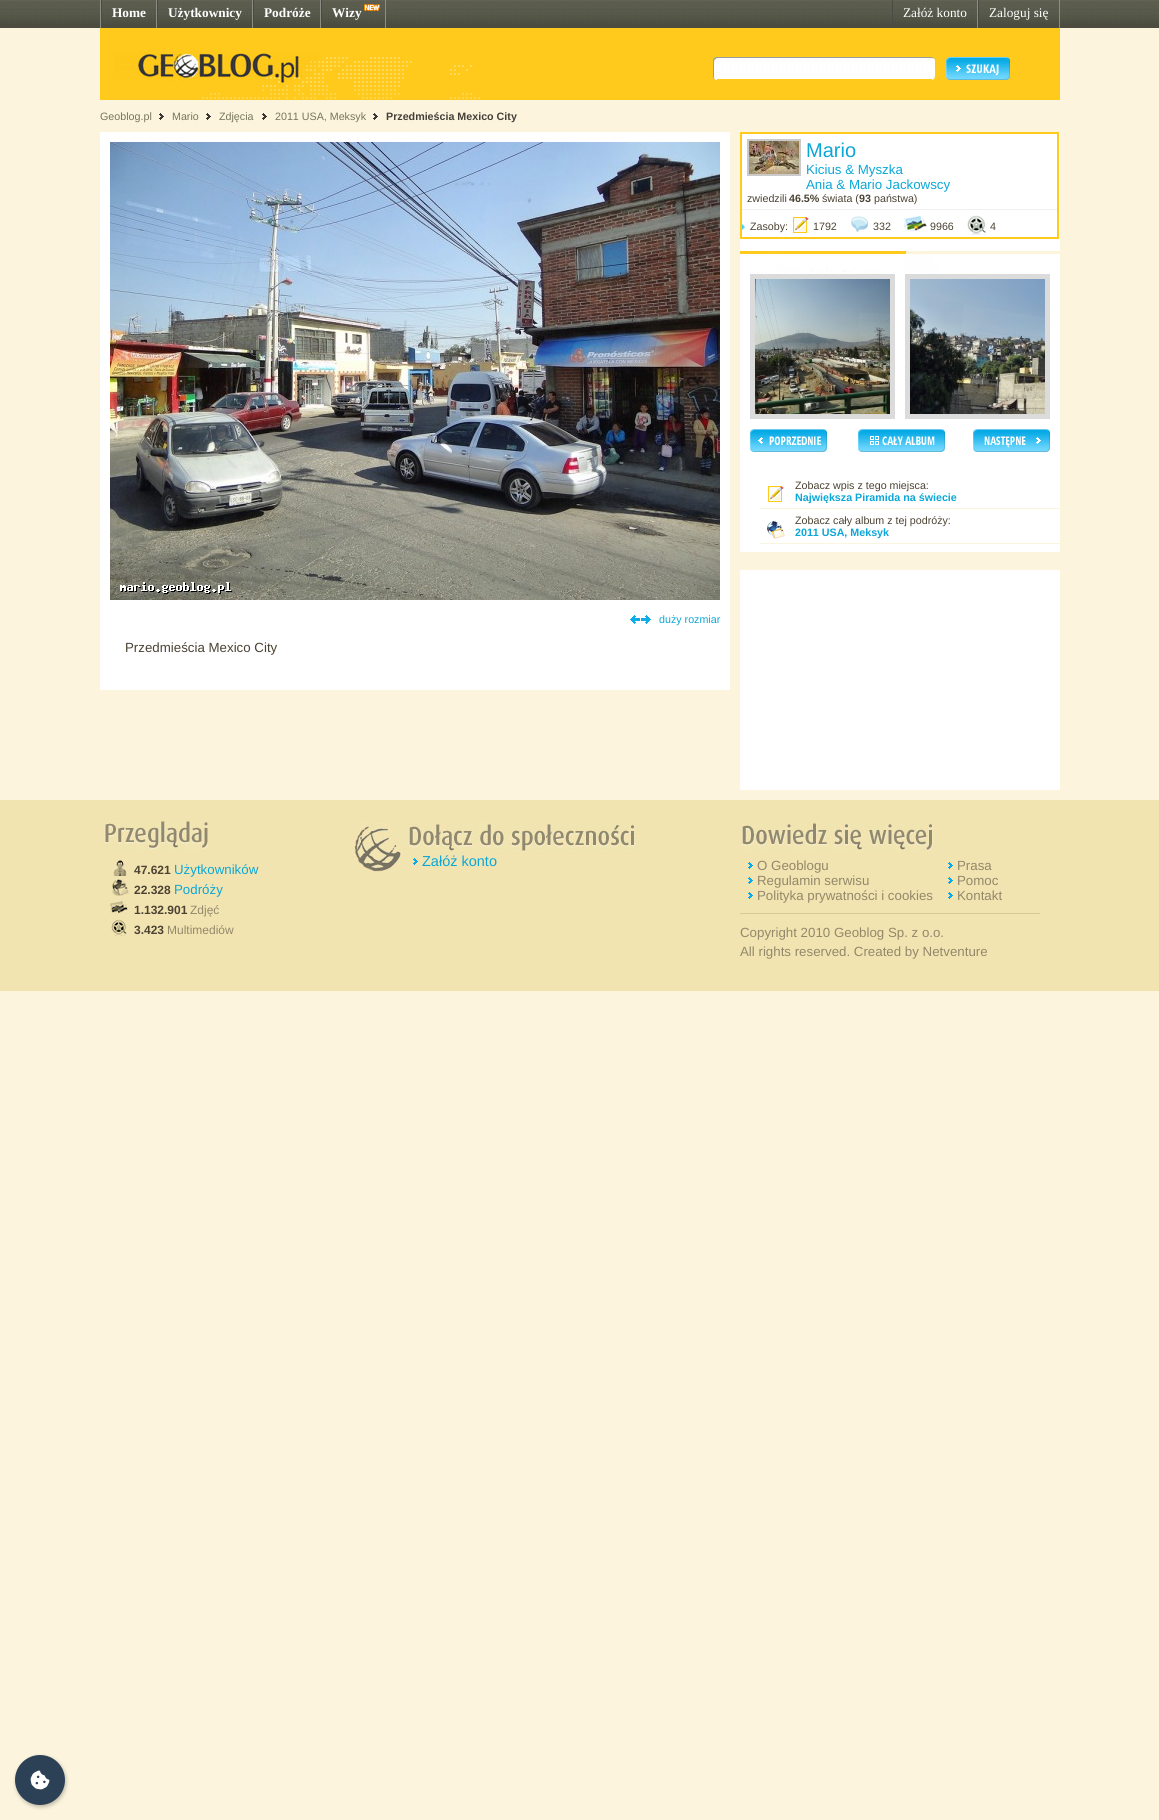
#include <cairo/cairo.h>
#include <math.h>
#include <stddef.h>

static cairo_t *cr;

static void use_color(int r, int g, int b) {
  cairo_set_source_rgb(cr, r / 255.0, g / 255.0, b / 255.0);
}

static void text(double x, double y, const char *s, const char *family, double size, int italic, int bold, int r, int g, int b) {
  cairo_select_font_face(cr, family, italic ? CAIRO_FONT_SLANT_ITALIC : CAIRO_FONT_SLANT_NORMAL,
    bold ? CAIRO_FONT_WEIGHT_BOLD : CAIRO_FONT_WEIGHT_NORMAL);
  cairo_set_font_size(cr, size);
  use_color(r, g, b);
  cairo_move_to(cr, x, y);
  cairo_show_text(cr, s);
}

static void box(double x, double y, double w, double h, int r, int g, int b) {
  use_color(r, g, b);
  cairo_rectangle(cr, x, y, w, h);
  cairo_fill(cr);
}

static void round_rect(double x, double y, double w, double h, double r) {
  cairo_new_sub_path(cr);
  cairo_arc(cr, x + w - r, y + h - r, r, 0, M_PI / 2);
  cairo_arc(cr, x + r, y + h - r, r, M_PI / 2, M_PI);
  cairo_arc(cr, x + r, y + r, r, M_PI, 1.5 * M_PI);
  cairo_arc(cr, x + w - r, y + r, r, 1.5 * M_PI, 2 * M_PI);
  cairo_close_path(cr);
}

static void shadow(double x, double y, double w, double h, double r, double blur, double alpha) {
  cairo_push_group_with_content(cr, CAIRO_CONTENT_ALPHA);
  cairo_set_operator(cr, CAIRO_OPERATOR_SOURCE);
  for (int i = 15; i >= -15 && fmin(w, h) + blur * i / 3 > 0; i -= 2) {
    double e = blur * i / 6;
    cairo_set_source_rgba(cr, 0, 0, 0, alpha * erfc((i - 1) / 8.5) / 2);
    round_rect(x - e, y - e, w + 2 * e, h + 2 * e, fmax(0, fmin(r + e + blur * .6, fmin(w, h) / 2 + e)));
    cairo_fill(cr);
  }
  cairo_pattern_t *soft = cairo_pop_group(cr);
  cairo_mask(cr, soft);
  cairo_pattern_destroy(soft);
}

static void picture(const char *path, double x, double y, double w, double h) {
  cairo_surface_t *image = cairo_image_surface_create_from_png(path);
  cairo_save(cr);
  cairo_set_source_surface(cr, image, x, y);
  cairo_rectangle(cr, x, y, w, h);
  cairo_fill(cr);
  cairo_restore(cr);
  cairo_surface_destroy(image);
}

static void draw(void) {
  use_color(252, 244, 221);
  cairo_paint(cr);
  picture("img_01.png", 0, 0, 1159, 28);
  box(100, 0, 1, 28, 140, 141, 131);
  box(156, 0, 1, 28, 140, 141, 131);
  box(101, 0, 1, 28, 73, 74, 65);
  box(252, 0, 1, 28, 140, 141, 131);
  box(157, 0, 1, 28, 73, 74, 65);
  box(320, 0, 1, 28, 140, 141, 131);
  box(253, 0, 1, 28, 73, 74, 65);
  box(385, 0, 1, 28, 140, 141, 131);
  box(321, 0, 1, 28, 73, 74, 65);
  picture("img_02.png", 364, 4, 16, 7);
  box(977, 0, 1, 28, 140, 141, 131);
  box(892, 0, 1, 28, 73, 74, 65);
  box(1059, 0, 1, 28, 140, 141, 131);
  box(978, 0, 1, 28, 73, 74, 65);
  box(100, 28, 960, 72, 255, 202, 28);
  picture("img_03.png", 100, 52, 380, 48);
  picture("img_04.png", 713, 56, 4, 25);
  box(717, 78, 215, 1, 255, 255, 255);
  picture("img_05.png", 717, 56, 215, 22);
  picture("img_06.png", 932, 56, 4, 25);
  picture("img_07.png", 946, 57, 64, 23);
  picture("img_08.png", 159, 113, 5, 7);
  picture("img_08.png", 206, 113, 5, 7);
  picture("img_08.png", 262, 113, 5, 7);
  picture("img_08.png", 373, 113, 5, 7);
  box(740, 132, 320, 420, 255, 255, 255);
  cairo_rectangle(cr, 741, 133, 317, 105);
  use_color(255, 202, 28);
  cairo_stroke(cr);
  box(742, 209, 315, 1, 240, 240, 240);
  cairo_rectangle(cr, 748, 140, 52, 35);
  use_color(202, 202, 202);
  cairo_stroke(cr);
  picture("img_09.png", 749, 141, 50, 33);
  picture("img_10.png", 742, 224, 3, 6);
  picture("img_11.png", 793, 217, 16, 16);
  picture("img_12.png", 851, 216, 17, 16);
  picture("img_13.png", 904, 215, 23, 17);
  picture("img_14.png", 967, 215, 19, 20);
  picture("img_15.png", 740, 251, 320, 21);
  cairo_rectangle(cr, 752.5, 276.5, 140, 140);
  use_color(219, 219, 219);
  cairo_set_line_width(cr, 5);
  cairo_stroke(cr);
  picture("img_16.png", 755, 279, 135, 135);
  cairo_rectangle(cr, 907.5, 276.5, 140, 140);
  cairo_stroke(cr);
  picture("img_17.png", 910, 279, 135, 135);
  picture("img_18.png", 750, 429, 77, 23);
  picture("img_19.png", 858, 429, 87, 23);
  picture("img_20.png", 973, 429, 77, 23);
  box(760, 508, 300, 1, 250, 245, 223);
  picture("img_11.png", 768, 486, 16, 16);
  box(760, 543, 300, 1, 250, 245, 223);
  picture("img_21.png", 767, 521, 18, 18);
  box(740, 570, 320, 220, 255, 255, 255);
  box(100, 132, 630, 558, 255, 255, 255);
  picture("img_22.png", 110, 142, 610, 458);
  picture("img_23.png", 630, 615, 21, 9);
  box(0, 800, 1159, 191, 242, 228, 177);
  picture("img_24.png", 352, 822, 52, 52);
  picture("img_25.png", 405, 822, 234, 31);
  picture("img_26.png", 410, 856, 9, 12);
  picture("img_27.png", 104, 820, 104, 32);
  picture("img_28.png", 111, 860, 16, 16);
  picture("img_29.png", 111, 879, 18, 17);
  picture("img_30.png", 110, 900, 19, 16);
  picture("img_31.png", 111, 919, 16, 17);
  picture("img_32.png", 742, 822, 192, 31);
  box(740, 913, 300, 1, 215, 201, 154);
  picture("img_26.png", 745, 860, 9, 12);
  picture("img_26.png", 745, 875, 9, 12);
  picture("img_26.png", 745, 890, 9, 12);
  picture("img_26.png", 945, 860, 9, 12);
  picture("img_26.png", 945, 875, 9, 12);
  picture("img_26.png", 945, 890, 9, 12);
  use_color(0, 0, 0);
  shadow(16, 1757, 50, 50, 25, 2, 0.25);
  use_color(45, 65, 86);
  cairo_arc(cr, 40, 1780, 25, 0, 2 * M_PI);
  cairo_fill(cr);
  picture("img_33.png", 30, 1770, 20, 20);
  text(112, 17, "Home", "Liberation Serif", 13.3, 0, 1, 255, 255, 255);
  text(168, 17, "Użytkownicy", "Liberation Serif", 13.3, 0, 1, 255, 255, 255);
  text(264, 17, "Podróże", "Liberation Serif", 13.3, 0, 1, 255, 255, 255);
  text(332, 17, "Wizy", "Liberation Serif", 13.3, 0, 1, 255, 255, 255);
  text(903, 17, "Załóż konto", "Liberation Serif", 13.3, 0, 0, 255, 255, 255);
  text(989, 17, "Zaloguj się", "Liberation Serif", 13.3, 0, 0, 255, 255, 255);
  text(100, 120, "Geoblog.pl", "Liberation Sans", 10.7, 0, 0, 118, 118, 92);
  text(172, 120, "Mario", "Liberation Sans", 10.7, 0, 0, 118, 118, 92);
  text(219, 120, "Zdjęcia", "Liberation Sans", 10.7, 0, 0, 118, 118, 92);
  text(275, 120, "2011 USA, Meksyk", "Liberation Sans", 10.7, 0, 0, 118, 118, 92);
  text(386, 120, "Przedmieścia Mexico City", "Liberation Sans", 10.7, 0, 1, 68, 63, 57);
  text(806, 157, "Mario", "Liberation Sans", 20, 0, 0, 11, 167, 216);
  text(806, 174, "Kicius & Myszka", "Liberation Sans", 13.3, 0, 0, 11, 167, 216);
  text(806, 189, "Ania & Mario Jackowscy", "Liberation Sans", 13.3, 0, 0, 11, 167, 216);
  text(747, 202, "zwiedzili", "Liberation Sans", 10.7, 0, 0, 75, 66, 51);
  text(789, 202, "46.5%", "Liberation Sans", 10.7, 0, 1, 75, 66, 51);
  text(822, 202, "świata (", "Liberation Sans", 10.7, 0, 0, 75, 66, 51);
  text(859, 202, "93", "Liberation Sans", 10.7, 0, 1, 75, 66, 51);
  text(874, 202, "państwa)", "Liberation Sans", 10.7, 0, 0, 75, 66, 51);
  text(750, 230, "Zasoby:", "Liberation Sans", 10.7, 0, 0, 75, 66, 51);
  text(813, 230, "1792", "Liberation Sans", 10.7, 0, 0, 75, 66, 51);
  text(873, 230, "332", "Liberation Sans", 10.7, 0, 0, 75, 66, 51);
  text(930, 230, "9966", "Liberation Sans", 10.7, 0, 0, 75, 66, 51);
  text(990, 230, "4", "Liberation Sans", 10.7, 0, 0, 75, 66, 51);
  text(795, 489, "Zobacz wpis z tego miejsca:", "Liberation Sans", 10.7, 0, 0, 75, 66, 51);
  text(795, 501, "Największa Piramida na świecie", "Liberation Sans", 10.7, 0, 1, 11, 167, 216);
  text(795, 524, "Zobacz cały album z tej podróży:", "Liberation Sans", 10.7, 0, 0, 75, 66, 51);
  text(795, 536, "2011 USA, Meksyk", "Liberation Sans", 10.7, 0, 1, 11, 167, 216);
  text(659, 623, "duży rozmiar", "Liberation Sans", 10.7, 0, 0, 11, 167, 216);
  text(125, 652, "Przedmieścia Mexico City", "Liberation Sans", 13.3, 0, 0, 75, 66, 51);
  text(422, 866, "Załóż konto", "Liberation Sans", 14.5, 0, 0, 11, 167, 216);
  text(134, 874, "47.621", "Liberation Sans", 12, 0, 1, 75, 66, 51);
  text(174, 874, "Użytkowników", "Liberation Sans", 13.3, 0, 0, 11, 167, 216);
  text(134, 894, "22.328", "Liberation Sans", 12, 0, 1, 75, 66, 51);
  text(174, 894, "Podróży", "Liberation Sans", 13.3, 0, 0, 11, 167, 216);
  text(134, 914, "1.132.901", "Liberation Sans", 12, 0, 1, 75, 66, 51);
  text(190, 914, "Zdjęć", "Liberation Sans", 12, 0, 0, 146, 136, 106);
  text(134, 934, "3.423", "Liberation Sans", 12, 0, 1, 75, 66, 51);
  text(167, 934, "Multimediów", "Liberation Sans", 12, 0, 0, 146, 136, 106);
  text(757, 870, "O Geoblogu", "Liberation Sans", 13.3, 0, 0, 146, 136, 106);
  text(757, 885, "Regulamin serwisu", "Liberation Sans", 13.3, 0, 0, 146, 136, 106);
  text(757, 900, "Polityka prywatności i cookies", "Liberation Sans", 13.3, 0, 0, 146, 136, 106);
  text(957, 870, "Prasa", "Liberation Sans", 13.3, 0, 0, 146, 136, 106);
  text(957, 885, "Pomoc", "Liberation Sans", 13.3, 0, 0, 146, 136, 106);
  text(957, 900, "Kontakt", "Liberation Sans", 13.3, 0, 0, 146, 136, 106);
  text(740, 937, "Copyright 2010 Geoblog Sp. z o.o.", "Liberation Sans", 13.3, 0, 0, 146, 136, 106);
  text(740, 956, "All rights reserved. Created by Netventure", "Liberation Sans", 13.3, 0, 0, 146, 136, 106);
}

int main(void) {
  cairo_surface_t *surface = cairo_image_surface_create(CAIRO_FORMAT_RGB24, 1159, 1820);
  cr = cairo_create(surface);
  cairo_font_options_t *options = cairo_font_options_create();
  cairo_font_options_set_hint_metrics(options, CAIRO_HINT_METRICS_OFF);
  cairo_font_options_set_hint_style(options, CAIRO_HINT_STYLE_NONE);
  cairo_set_font_options(cr, options);
  cairo_set_miter_limit(cr, 4);
  draw();
  cairo_surface_write_to_png(surface, "out.png");
  cairo_font_options_destroy(options);
  cairo_destroy(cr);
  cairo_surface_destroy(surface);
  return 0;
}
